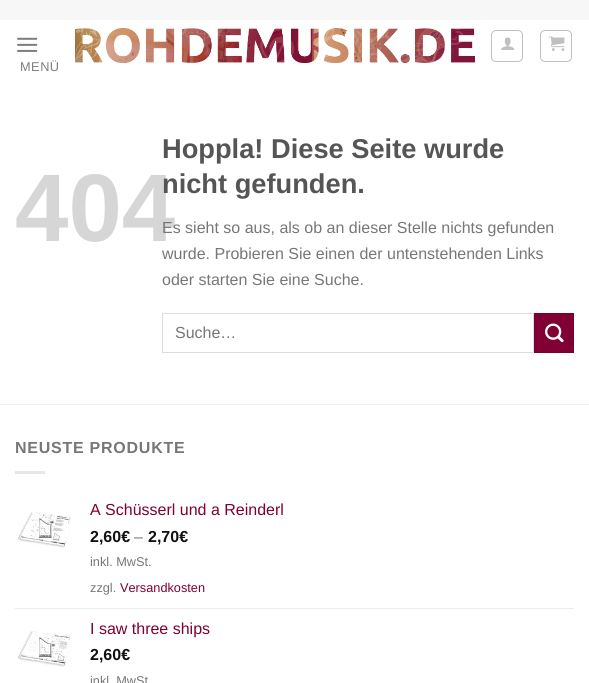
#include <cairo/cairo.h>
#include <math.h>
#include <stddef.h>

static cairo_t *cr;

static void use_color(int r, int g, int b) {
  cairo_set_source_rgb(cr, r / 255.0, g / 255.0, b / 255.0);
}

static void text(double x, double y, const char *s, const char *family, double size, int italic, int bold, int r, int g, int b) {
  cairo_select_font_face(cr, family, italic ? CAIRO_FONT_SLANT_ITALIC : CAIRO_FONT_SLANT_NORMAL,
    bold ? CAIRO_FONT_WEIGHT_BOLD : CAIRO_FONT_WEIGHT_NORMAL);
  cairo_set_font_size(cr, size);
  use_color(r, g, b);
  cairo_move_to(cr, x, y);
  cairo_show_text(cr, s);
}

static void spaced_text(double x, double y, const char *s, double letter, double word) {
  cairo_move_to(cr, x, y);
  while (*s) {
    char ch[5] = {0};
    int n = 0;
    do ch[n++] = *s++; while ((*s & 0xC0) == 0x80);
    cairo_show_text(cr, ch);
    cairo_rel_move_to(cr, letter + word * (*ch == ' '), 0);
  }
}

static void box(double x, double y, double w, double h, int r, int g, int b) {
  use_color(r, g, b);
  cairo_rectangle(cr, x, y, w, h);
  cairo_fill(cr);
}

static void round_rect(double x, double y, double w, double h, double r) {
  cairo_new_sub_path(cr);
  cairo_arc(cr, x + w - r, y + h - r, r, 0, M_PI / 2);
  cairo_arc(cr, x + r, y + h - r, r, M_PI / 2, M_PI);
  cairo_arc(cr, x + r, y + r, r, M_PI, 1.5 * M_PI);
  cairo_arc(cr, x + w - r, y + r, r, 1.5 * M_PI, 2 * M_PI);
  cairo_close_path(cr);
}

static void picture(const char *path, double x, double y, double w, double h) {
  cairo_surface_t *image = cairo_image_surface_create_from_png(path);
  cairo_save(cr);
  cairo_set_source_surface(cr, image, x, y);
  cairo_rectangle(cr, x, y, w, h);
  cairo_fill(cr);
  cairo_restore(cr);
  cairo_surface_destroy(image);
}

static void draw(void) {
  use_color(255, 255, 255);
  cairo_paint(cr);
  box(0, 0, 589, 20, 247, 247, 247);
  picture("img_01.png", 75, 28, 400, 35);
  round_rect(491.5, 30.5, 31, 31, 4.5);
  use_color(192, 192, 192);
  cairo_set_line_width(cr, 1);
  cairo_stroke(cr);
  picture("img_02.png", 501, 37, 14, 13);
  round_rect(540.5, 30.5, 31, 31, 4.5);
  cairo_stroke(cr);
  picture("img_03.png", 549, 36, 16, 15);
  picture("img_04.png", 17, 37, 21, 15);
  cairo_rectangle(cr, 162.5, 313.5, 371, 39);
  use_color(221, 221, 221);
  cairo_stroke(cr);
  use_color(128, 0, 51);
  cairo_rectangle(cr, 534.5, 313.5, 39, 39);
  cairo_fill_preserve(cr);
  use_color(122, 0, 48);
  cairo_stroke(cr);
  picture("img_05.png", 545, 323, 19, 20);
  box(0, 404, 589, 1, 242, 242, 242);
  box(15, 471, 30, 3, 230, 230, 230);
  picture("img_06.png", 17, 512, 54, 36);
  box(15, 608, 559, 1, 236, 236, 236);
  picture("img_07.png", 17, 631, 55, 36);
  cairo_select_font_face(cr, "Liberation Sans", CAIRO_FONT_SLANT_NORMAL, CAIRO_FONT_WEIGHT_NORMAL);
  cairo_set_font_size(cr, 12.75);
  use_color(125, 125, 125);
  spaced_text(20, 71, "MENÜ", 0.5, 0);
  text(15, 241, "404", "Liberation Sans", 96, 0, 1, 214, 214, 214);
  text(162, 158, "Hoppla! Diese Seite wurde", "Liberation Sans", 27.25, 0, 1, 85, 85, 85);
  text(162, 193, "nicht gefunden.", "Liberation Sans", 27.25, 0, 1, 85, 85, 85);
  text(162, 233, "Es sieht so aus, als ob an dieser Stelle nichts gefunden", "Liberation Sans", 16, 0, 0, 119, 119, 119);
  text(162, 259, "wurde. Probieren Sie einen der untenstehenden Links", "Liberation Sans", 16, 0, 0, 119, 119, 119);
  text(162, 285, "oder starten Sie eine Suche.", "Liberation Sans", 16, 0, 0, 119, 119, 119);
  text(175, 338, "Suche…", "Liberation Sans", 16, 0, 0, 119, 119, 119);
  cairo_select_font_face(cr, "Liberation Sans", CAIRO_FONT_SLANT_NORMAL, CAIRO_FONT_WEIGHT_BOLD);
  spaced_text(15, 453, "NEUSTE PRODUKTE", 0.75, 0);
  text(90, 515, "A Schüsserl und a Reinderl", "Liberation Sans", 16, 0, 0, 128, 0, 51);
  text(90, 542, "2,60€", "Liberation Sans", 16, 0, 1, 17, 17, 17);
  text(134, 542, "–", "Liberation Sans", 16, 0, 0, 119, 119, 119);
  text(148, 542, "2,70€", "Liberation Sans", 16, 0, 1, 17, 17, 17);
  text(90, 566, "inkl. MwSt.", "Liberation Sans", 12.75, 0, 0, 119, 119, 119);
  text(90, 592, "zzgl.", "Liberation Sans", 12.75, 0, 0, 119, 119, 119);
  text(120, 592, "Versandkosten", "Liberation Sans", 12.75, 0, 0, 128, 0, 51);
  text(90, 634, "I saw three ships", "Liberation Sans", 16, 0, 0, 128, 0, 51);
  text(90, 660, "2,60€", "Liberation Sans", 16, 0, 1, 17, 17, 17);
  text(90, 685, "inkl. MwSt", "Liberation Sans", 12.75, 0, 0, 119, 119, 119);
}

int main(void) {
  cairo_surface_t *surface = cairo_image_surface_create(CAIRO_FORMAT_RGB24, 589, 683);
  cr = cairo_create(surface);
  cairo_font_options_t *options = cairo_font_options_create();
  cairo_font_options_set_hint_metrics(options, CAIRO_HINT_METRICS_OFF);
  cairo_font_options_set_hint_style(options, CAIRO_HINT_STYLE_NONE);
  cairo_set_font_options(cr, options);
  cairo_set_miter_limit(cr, 4);
  draw();
  cairo_surface_write_to_png(surface, "out.png");
  cairo_font_options_destroy(options);
  cairo_destroy(cr);
  cairo_surface_destroy(surface);
  return 0;
}
